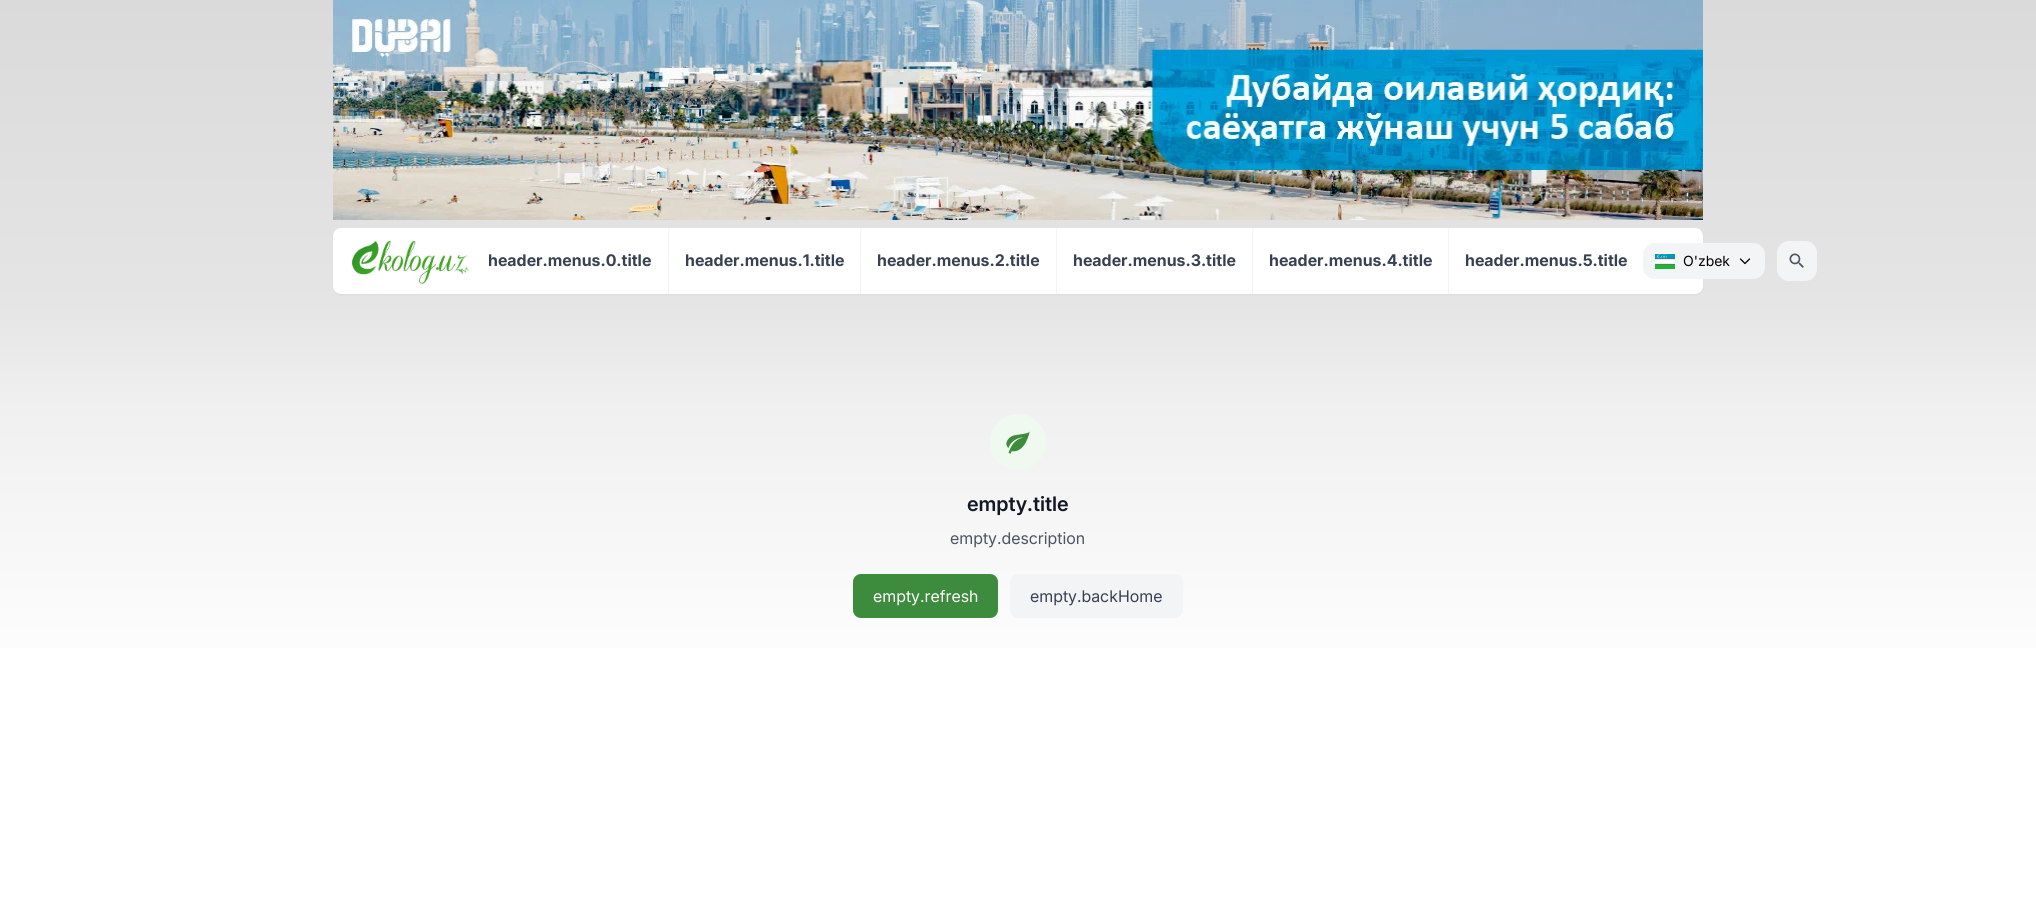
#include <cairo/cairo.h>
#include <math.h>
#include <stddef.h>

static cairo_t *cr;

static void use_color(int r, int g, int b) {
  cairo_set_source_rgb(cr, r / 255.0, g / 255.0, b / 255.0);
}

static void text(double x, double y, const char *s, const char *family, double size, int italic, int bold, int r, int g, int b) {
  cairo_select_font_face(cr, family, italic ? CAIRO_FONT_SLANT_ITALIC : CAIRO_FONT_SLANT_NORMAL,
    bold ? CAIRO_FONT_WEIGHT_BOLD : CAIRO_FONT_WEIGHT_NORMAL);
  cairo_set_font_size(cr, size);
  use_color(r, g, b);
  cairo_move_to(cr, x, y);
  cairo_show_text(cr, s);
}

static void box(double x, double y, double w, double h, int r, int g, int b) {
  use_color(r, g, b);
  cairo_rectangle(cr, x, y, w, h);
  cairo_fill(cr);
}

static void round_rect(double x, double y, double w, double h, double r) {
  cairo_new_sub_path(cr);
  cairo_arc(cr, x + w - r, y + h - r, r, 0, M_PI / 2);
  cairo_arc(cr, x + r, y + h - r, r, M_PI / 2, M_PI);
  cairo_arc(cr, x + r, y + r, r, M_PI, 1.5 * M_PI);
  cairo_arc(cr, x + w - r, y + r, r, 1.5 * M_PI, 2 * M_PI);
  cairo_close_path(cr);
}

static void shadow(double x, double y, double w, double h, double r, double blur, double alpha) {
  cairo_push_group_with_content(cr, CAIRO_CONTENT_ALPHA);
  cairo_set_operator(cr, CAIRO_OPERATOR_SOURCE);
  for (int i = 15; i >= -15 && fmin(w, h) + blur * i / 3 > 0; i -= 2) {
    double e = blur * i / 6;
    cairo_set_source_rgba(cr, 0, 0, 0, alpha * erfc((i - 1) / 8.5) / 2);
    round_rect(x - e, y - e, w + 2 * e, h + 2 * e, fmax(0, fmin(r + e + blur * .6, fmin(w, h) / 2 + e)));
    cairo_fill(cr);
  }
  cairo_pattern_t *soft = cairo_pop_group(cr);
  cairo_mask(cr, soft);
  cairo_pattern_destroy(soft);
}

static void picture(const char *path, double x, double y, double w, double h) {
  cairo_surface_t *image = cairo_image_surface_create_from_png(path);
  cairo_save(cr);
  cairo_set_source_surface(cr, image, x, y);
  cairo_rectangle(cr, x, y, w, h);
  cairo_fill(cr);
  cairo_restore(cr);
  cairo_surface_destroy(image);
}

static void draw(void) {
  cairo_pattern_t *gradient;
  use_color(255, 255, 255);
  cairo_paint(cr);
  gradient = cairo_pattern_create_linear(1018, 0, 1018, 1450);
  cairo_pattern_add_color_stop_rgba(gradient, 0, 0.855, 0.855, 0.855, 1);
  cairo_pattern_add_color_stop_rgba(gradient, 0.21, 0.898, 0.898, 0.898, 1);
  cairo_pattern_add_color_stop_rgba(gradient, 0.28, 0.941, 0.941, 0.941, 1);
  cairo_pattern_add_color_stop_rgba(gradient, 0.48, 1, 1, 1, 1);
  cairo_set_source(cr, gradient);
  cairo_pattern_destroy(gradient);
  cairo_rectangle(cr, 0, 0, 2036, 648);
  cairo_fill(cr);
  picture("img_01.png", 333, 0, 1370, 220);
  use_color(0, 0, 0);
  shadow(333, 229, 1370, 66, 8, 1, 0.05);
  use_color(255, 255, 255);
  round_rect(333, 228, 1370, 66, 8);
  cairo_fill(cr);
  picture("img_02.png", 351, 240, 118, 45);
  box(668, 228, 1, 66, 243, 244, 246);
  box(860, 228, 1, 66, 243, 244, 246);
  box(1056, 228, 1, 66, 243, 244, 246);
  box(1252, 228, 1, 66, 243, 244, 246);
  box(1448, 228, 1, 66, 243, 244, 246);
  round_rect(1643, 243, 122, 36, 12);
  cairo_fill(cr);
  picture("img_03.png", 1655, 254, 20, 15);
  cairo_new_path(cr);
  cairo_move_to(cr, 1749.5, 259);
  cairo_line_to(cr, 1745, 263.5);
  cairo_line_to(cr, 1740.5, 259);
  use_color(0, 0, 0);
  cairo_set_line_width(cr, 1.3);
  cairo_set_line_cap(cr, CAIRO_LINE_CAP_ROUND);
  cairo_set_line_join(cr, CAIRO_LINE_JOIN_ROUND);
  cairo_stroke(cr);
  use_color(243, 244, 246);
  round_rect(1777, 241, 40, 40, 12);
  cairo_fill(cr);
  picture("img_04.png", 1789, 253, 15, 15);
  use_color(240, 249, 240);
  cairo_arc(cr, 1018, 442, 28, 0, 2 * M_PI);
  cairo_fill(cr);
  picture("img_05.png", 1006, 431, 24, 23);
  use_color(61, 139, 61);
  round_rect(853, 574, 145, 44, 8);
  cairo_fill(cr);
  use_color(243, 244, 246);
  round_rect(1010, 574, 173, 44, 8);
  cairo_fill(cr);
  text(488, 266, "header.menus.0.title", "Inter", 16, 0, 1, 55, 65, 81);
  text(685, 266, "header.menus.1.title", "Inter", 16, 0, 1, 55, 65, 81);
  text(877, 266, "header.menus.2.title", "Inter", 16, 0, 1, 55, 65, 81);
  text(1073, 266, "header.menus.3.title", "Inter", 16, 0, 1, 55, 65, 81);
  text(1269, 266, "header.menus.4.title", "Inter", 16, 0, 1, 55, 65, 81);
  text(1465, 266, "header.menus.5.title", "Inter", 16, 0, 1, 55, 65, 81);
  text(1683, 266, "O'zbek", "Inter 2", 14, 0, 0, 0, 0, 0);
  text(967, 511, "empty.title", "Inter SemiBold", 20, 0, 0, 17, 24, 39);
  text(950, 544, "empty.description", "Inter", 16, 0, 0, 75, 85, 99);
  text(873, 602, "empty.refresh", "Inter", 16, 0, 0, 255, 255, 255);
  text(1030, 602, "empty.backHome", "Inter", 16, 0, 0, 55, 65, 81);
}

int main(void) {
  cairo_surface_t *surface = cairo_image_surface_create(CAIRO_FORMAT_RGB24, 2036, 924);
  cr = cairo_create(surface);
  cairo_font_options_t *options = cairo_font_options_create();
  cairo_font_options_set_hint_metrics(options, CAIRO_HINT_METRICS_OFF);
  cairo_font_options_set_hint_style(options, CAIRO_HINT_STYLE_NONE);
  cairo_set_font_options(cr, options);
  cairo_set_miter_limit(cr, 4);
  draw();
  cairo_surface_write_to_png(surface, "out.png");
  cairo_font_options_destroy(options);
  cairo_destroy(cr);
  cairo_surface_destroy(surface);
  return 0;
}
